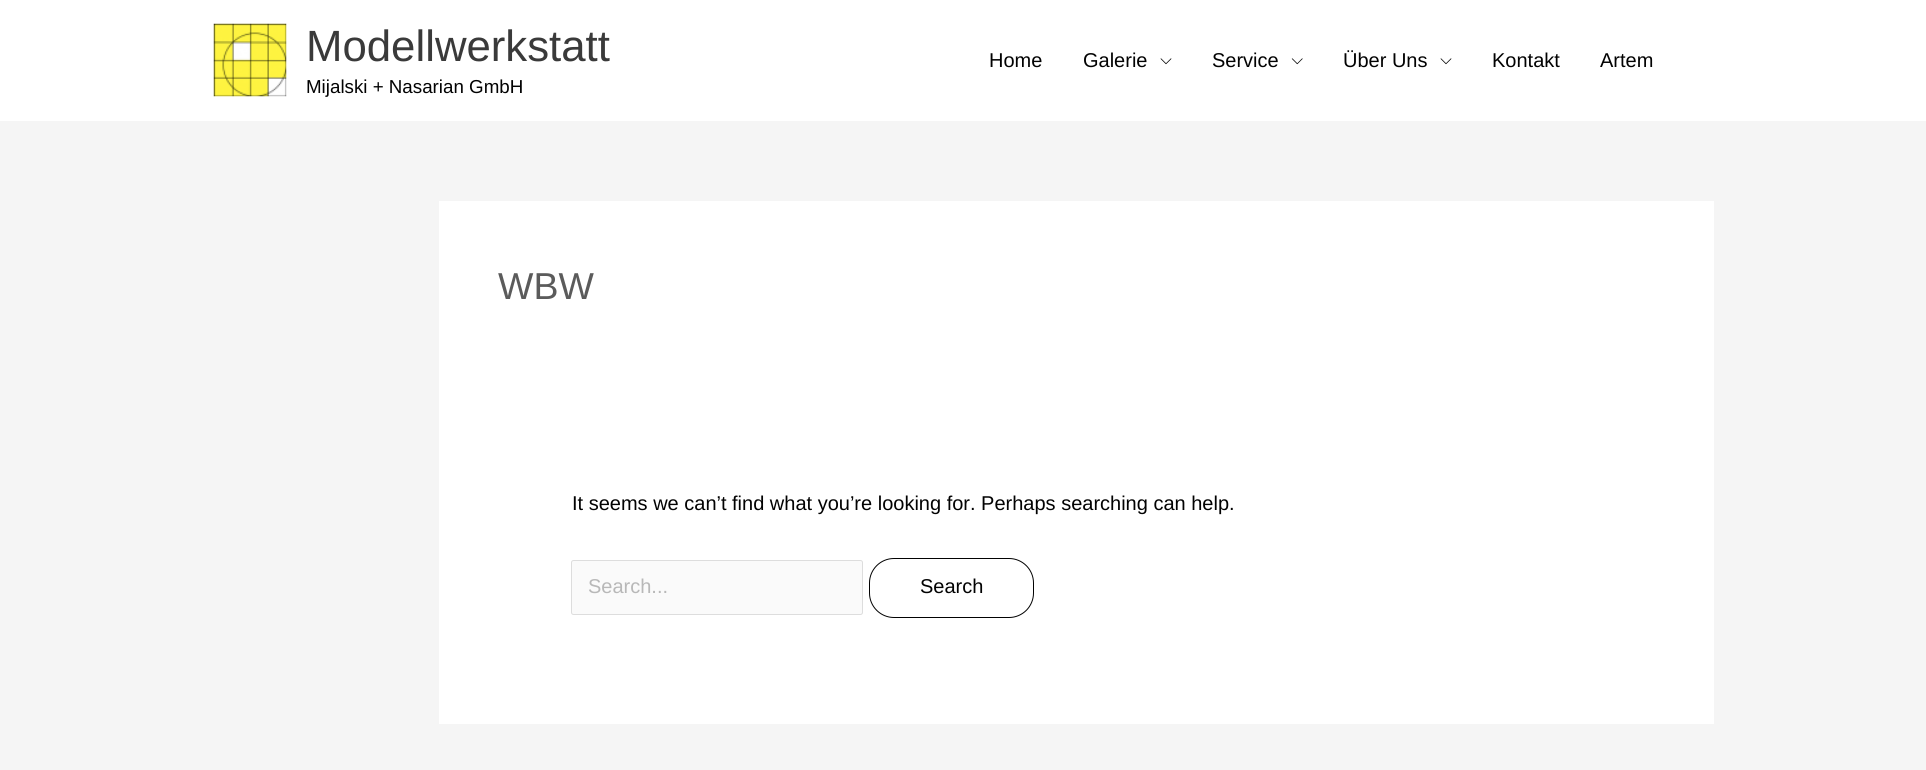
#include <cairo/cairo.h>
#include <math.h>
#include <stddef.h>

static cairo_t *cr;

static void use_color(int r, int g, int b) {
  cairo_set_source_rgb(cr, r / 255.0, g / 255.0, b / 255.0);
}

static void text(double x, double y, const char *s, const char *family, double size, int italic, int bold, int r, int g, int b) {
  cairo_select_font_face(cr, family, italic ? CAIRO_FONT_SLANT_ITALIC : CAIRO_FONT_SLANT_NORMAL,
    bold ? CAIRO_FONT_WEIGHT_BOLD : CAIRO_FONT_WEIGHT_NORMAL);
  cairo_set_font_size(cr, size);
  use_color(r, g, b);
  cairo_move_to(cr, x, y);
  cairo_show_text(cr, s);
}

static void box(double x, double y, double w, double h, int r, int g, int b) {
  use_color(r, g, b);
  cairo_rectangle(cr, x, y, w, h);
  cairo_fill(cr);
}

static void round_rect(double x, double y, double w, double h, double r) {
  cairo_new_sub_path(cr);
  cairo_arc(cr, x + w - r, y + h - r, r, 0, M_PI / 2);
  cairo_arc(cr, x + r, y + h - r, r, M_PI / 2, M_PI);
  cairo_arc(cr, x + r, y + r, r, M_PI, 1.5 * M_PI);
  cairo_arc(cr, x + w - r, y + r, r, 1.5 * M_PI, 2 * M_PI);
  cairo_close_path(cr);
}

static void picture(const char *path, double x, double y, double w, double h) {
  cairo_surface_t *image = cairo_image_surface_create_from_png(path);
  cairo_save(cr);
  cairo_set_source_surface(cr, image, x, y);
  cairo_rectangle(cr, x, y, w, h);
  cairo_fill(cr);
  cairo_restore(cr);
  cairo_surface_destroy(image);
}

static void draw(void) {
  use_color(245, 245, 245);
  cairo_paint(cr);
  box(0, 0, 1926, 121, 255, 255, 255);
  picture("img_01.png", 213, 23, 74, 74);
  picture("img_02.png", 1160, 58, 12, 7);
  picture("img_03.png", 1291, 58, 12, 7);
  picture("img_02.png", 1440, 58, 12, 7);
  box(439, 201, 1275, 523, 255, 255, 255);
  use_color(250, 250, 250);
  round_rect(571.5, 560.5, 291, 54, 2);
  cairo_fill_preserve(cr);
  use_color(221, 221, 221);
  cairo_set_line_width(cr, 1);
  cairo_stroke(cr);
  round_rect(869.5, 558.5, 164, 59, 24.5);
  use_color(2, 2, 2);
  cairo_stroke(cr);
  text(306, 61, "Modellwerkstatt", "Liberation Sans", 43.75, 0, 0, 58, 58, 58);
  text(306, 93, "Mijalski + Nasarian GmbH", "Liberation Sans", 18.75, 0, 0, 2, 2, 2);
  text(989, 67, "Home", "Liberation Sans", 20, 0, 0, 2, 2, 2);
  text(1083, 67, "Galerie", "Liberation Sans", 20, 0, 0, 2, 2, 2);
  text(1212, 67, "Service", "Liberation Sans", 20, 0, 0, 2, 2, 2);
  text(1343, 67, "Über Uns", "Liberation Sans", 20, 0, 0, 2, 2, 2);
  text(1492, 67, "Kontakt", "Liberation Sans", 20, 0, 0, 2, 2, 2);
  text(1600, 67, "Artem", "Liberation Sans", 20, 0, 0, 2, 2, 2);
  text(498, 299, "WBW", "Liberation Sans", 37.5, 0, 0, 91, 91, 91);
  text(572, 510, "It seems we can’t find what you’re looking for. Perhaps searching can help.", "Liberation Sans", 20, 0, 0, 2, 2, 2);
  text(588, 593, "Search...", "Liberation Sans", 20, 0, 0, 184, 184, 184);
  text(920, 593, "Search", "Liberation Sans", 20, 0, 0, 2, 2, 2);
}

int main(void) {
  cairo_surface_t *surface = cairo_image_surface_create(CAIRO_FORMAT_RGB24, 1926, 770);
  cr = cairo_create(surface);
  cairo_font_options_t *options = cairo_font_options_create();
  cairo_font_options_set_hint_metrics(options, CAIRO_HINT_METRICS_OFF);
  cairo_font_options_set_hint_style(options, CAIRO_HINT_STYLE_NONE);
  cairo_set_font_options(cr, options);
  cairo_set_miter_limit(cr, 4);
  draw();
  cairo_surface_write_to_png(surface, "out.png");
  cairo_font_options_destroy(options);
  cairo_destroy(cr);
  cairo_surface_destroy(surface);
  return 0;
}
